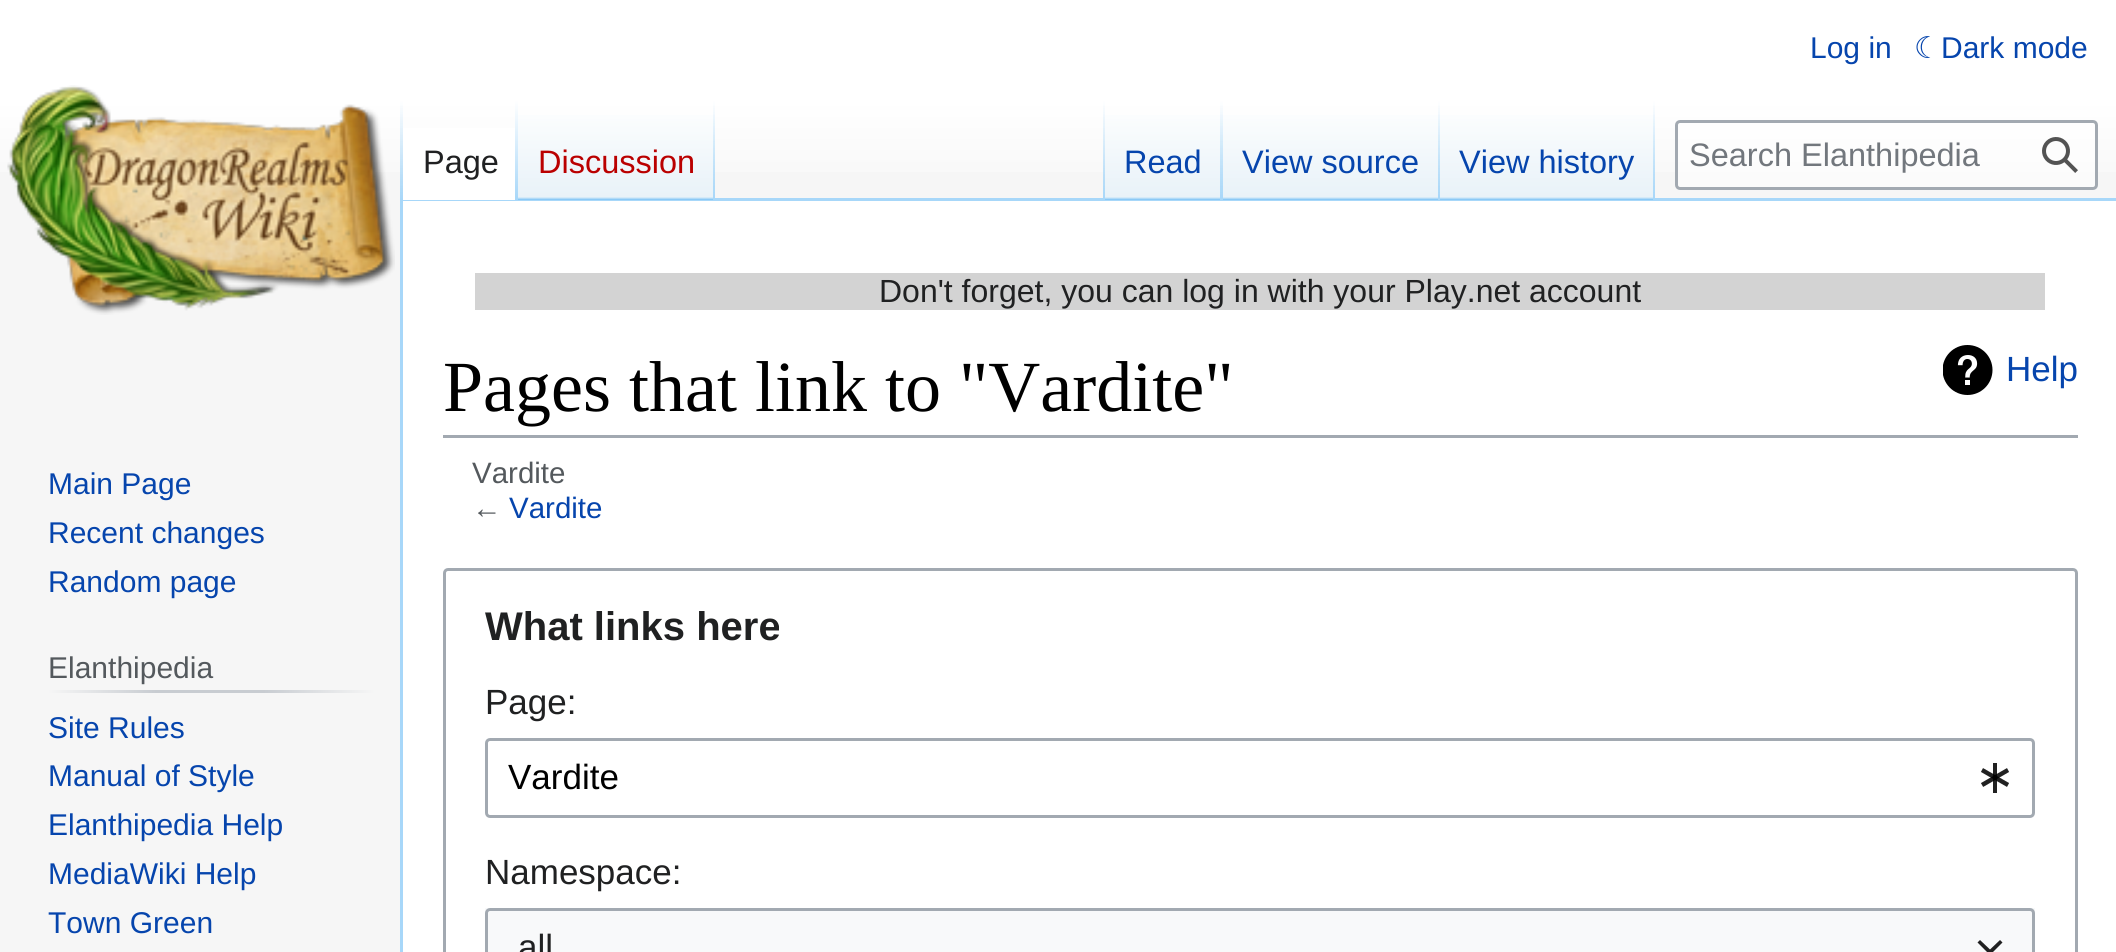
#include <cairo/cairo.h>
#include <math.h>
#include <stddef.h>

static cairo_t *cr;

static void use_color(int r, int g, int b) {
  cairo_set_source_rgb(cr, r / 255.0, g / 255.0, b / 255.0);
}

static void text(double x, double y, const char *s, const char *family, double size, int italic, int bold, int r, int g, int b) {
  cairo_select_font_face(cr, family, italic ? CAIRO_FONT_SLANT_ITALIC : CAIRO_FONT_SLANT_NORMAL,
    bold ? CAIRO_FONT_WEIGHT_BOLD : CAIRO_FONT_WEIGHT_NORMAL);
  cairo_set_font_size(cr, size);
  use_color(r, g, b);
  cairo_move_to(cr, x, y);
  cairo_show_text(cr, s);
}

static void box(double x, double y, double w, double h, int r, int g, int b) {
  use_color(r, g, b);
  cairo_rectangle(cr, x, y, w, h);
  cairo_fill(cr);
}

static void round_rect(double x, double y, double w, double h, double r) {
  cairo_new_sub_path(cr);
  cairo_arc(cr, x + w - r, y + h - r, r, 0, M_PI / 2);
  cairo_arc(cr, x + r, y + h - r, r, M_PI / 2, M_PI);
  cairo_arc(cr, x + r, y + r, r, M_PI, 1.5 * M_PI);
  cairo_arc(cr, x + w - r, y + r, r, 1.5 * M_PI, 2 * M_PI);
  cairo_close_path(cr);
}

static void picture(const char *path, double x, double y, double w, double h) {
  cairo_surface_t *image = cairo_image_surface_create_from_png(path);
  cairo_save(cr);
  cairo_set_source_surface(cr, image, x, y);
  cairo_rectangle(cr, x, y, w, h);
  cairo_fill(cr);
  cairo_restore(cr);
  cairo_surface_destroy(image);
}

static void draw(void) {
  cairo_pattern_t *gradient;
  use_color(246, 246, 246);
  cairo_paint(cr);
  gradient = cairo_pattern_create_linear(1059, 0, 1059, 200);
  cairo_pattern_add_color_stop_rgba(gradient, 0.5, 1, 1, 1, 1);
  cairo_pattern_add_color_stop_rgba(gradient, 1, 0.965, 0.965, 0.965, 1);
  cairo_set_source(cr, gradient);
  cairo_pattern_destroy(gradient);
  cairo_rectangle(cr, 0, 0, 2116, 172);
  cairo_fill(cr);
  box(400, 198, 1716, 3, 167, 215, 249);
  box(400, 198, 3, 754, 167, 215, 249);
  gradient = cairo_pattern_create_linear(401, 100, 401, 200);
  cairo_pattern_add_color_stop_rgba(gradient, 0, 0.655, 0.843, 0.976, 0);
  cairo_pattern_add_color_stop_rgba(gradient, 1, 0.655, 0.843, 0.976, 1);
  cairo_set_source(cr, gradient);
  cairo_pattern_destroy(gradient);
  cairo_rectangle(cr, 400, 100, 3, 100);
  cairo_fill(cr);
  box(403, 128, 112, 72, 255, 255, 255);
  gradient = cairo_pattern_create_linear(516, 100, 516, 200);
  cairo_pattern_add_color_stop_rgba(gradient, 0, 1, 1, 1, 1);
  cairo_pattern_add_color_stop_rgba(gradient, 1, 0.655, 0.843, 0.976, 1);
  cairo_set_source(cr, gradient);
  cairo_pattern_destroy(gradient);
  cairo_rectangle(cr, 515, 100, 3, 100);
  cairo_fill(cr);
  gradient = cairo_pattern_create_linear(616, 200, 616, 100);
  cairo_pattern_add_color_stop_rgba(gradient, 0, 0.467, 0.757, 0.965, 1);
  cairo_pattern_add_color_stop_rgba(gradient, 0.03, 0.91, 0.949, 0.973, 1);
  cairo_pattern_add_color_stop_rgba(gradient, 1, 1, 1, 1, 1);
  cairo_set_source(cr, gradient);
  cairo_pattern_destroy(gradient);
  cairo_rectangle(cr, 518, 115, 197, 85);
  cairo_fill(cr);
  gradient = cairo_pattern_create_linear(714, 100, 714, 200);
  cairo_pattern_add_color_stop_rgba(gradient, 0, 0.655, 0.843, 0.976, 0);
  cairo_pattern_add_color_stop_rgba(gradient, 1, 0.655, 0.843, 0.976, 1);
  cairo_set_source(cr, gradient);
  cairo_pattern_destroy(gradient);
  cairo_rectangle(cr, 713, 100, 2, 100);
  cairo_fill(cr);
  gradient = cairo_pattern_create_linear(1104, 100, 1104, 200);
  cairo_pattern_add_color_stop_rgba(gradient, 0, 0.655, 0.843, 0.976, 0);
  cairo_pattern_add_color_stop_rgba(gradient, 1, 0.655, 0.843, 0.976, 1);
  cairo_set_source(cr, gradient);
  cairo_pattern_destroy(gradient);
  cairo_rectangle(cr, 1103, 100, 2, 100);
  cairo_fill(cr);
  gradient = cairo_pattern_create_linear(1164, 200, 1164, 100);
  cairo_pattern_add_color_stop_rgba(gradient, 0, 0.467, 0.757, 0.965, 1);
  cairo_pattern_add_color_stop_rgba(gradient, 0.03, 0.91, 0.949, 0.973, 1);
  cairo_pattern_add_color_stop_rgba(gradient, 1, 1, 1, 1, 1);
  cairo_set_source(cr, gradient);
  cairo_pattern_destroy(gradient);
  cairo_rectangle(cr, 1105, 115, 118, 85);
  cairo_fill(cr);
  gradient = cairo_pattern_create_linear(1221, 100, 1221, 200);
  cairo_pattern_add_color_stop_rgba(gradient, 0, 0.655, 0.843, 0.976, 0);
  cairo_pattern_add_color_stop_rgba(gradient, 1, 0.655, 0.843, 0.976, 1);
  cairo_set_source(cr, gradient);
  cairo_pattern_destroy(gradient);
  cairo_rectangle(cr, 1220, 100, 3, 100);
  cairo_fill(cr);
  gradient = cairo_pattern_create_linear(1331, 200, 1331, 100);
  cairo_pattern_add_color_stop_rgba(gradient, 0, 0.467, 0.757, 0.965, 1);
  cairo_pattern_add_color_stop_rgba(gradient, 0.03, 0.91, 0.949, 0.973, 1);
  cairo_pattern_add_color_stop_rgba(gradient, 1, 1, 1, 1, 1);
  cairo_set_source(cr, gradient);
  cairo_pattern_destroy(gradient);
  cairo_rectangle(cr, 1223, 115, 217, 85);
  cairo_fill(cr);
  gradient = cairo_pattern_create_linear(1439, 100, 1439, 200);
  cairo_pattern_add_color_stop_rgba(gradient, 0, 0.655, 0.843, 0.976, 0);
  cairo_pattern_add_color_stop_rgba(gradient, 1, 0.655, 0.843, 0.976, 1);
  cairo_set_source(cr, gradient);
  cairo_pattern_destroy(gradient);
  cairo_rectangle(cr, 1438, 100, 2, 100);
  cairo_fill(cr);
  gradient = cairo_pattern_create_linear(1548, 200, 1548, 100);
  cairo_pattern_add_color_stop_rgba(gradient, 0, 0.467, 0.757, 0.965, 1);
  cairo_pattern_add_color_stop_rgba(gradient, 0.03, 0.91, 0.949, 0.973, 1);
  cairo_pattern_add_color_stop_rgba(gradient, 1, 1, 1, 1, 1);
  cairo_set_source(cr, gradient);
  cairo_pattern_destroy(gradient);
  cairo_rectangle(cr, 1440, 115, 215, 85);
  cairo_fill(cr);
  gradient = cairo_pattern_create_linear(1654, 100, 1654, 200);
  cairo_pattern_add_color_stop_rgba(gradient, 0, 0.655, 0.843, 0.976, 0);
  cairo_pattern_add_color_stop_rgba(gradient, 1, 0.655, 0.843, 0.976, 1);
  cairo_set_source(cr, gradient);
  cairo_pattern_destroy(gradient);
  cairo_rectangle(cr, 1653, 100, 2, 100);
  cairo_fill(cr);
  cairo_set_source_rgba(cr, 1, 1, 1, 0.5);
  round_rect(1676.5, 121.5, 420, 67, 3.5);
  cairo_fill_preserve(cr);
  use_color(162, 169, 177);
  cairo_set_line_width(cr, 3);
  cairo_stroke(cr);
  picture("img_01.png", 2042, 137, 36, 36);
  picture("img_02.png", 7, 85, 388, 230);
  gradient = cairo_pattern_create_linear(48, 691, 375, 691);
  cairo_pattern_add_color_stop_rgba(gradient, 0, 0.965, 0.965, 0.965, 1);
  cairo_pattern_add_color_stop_rgba(gradient, 0.33, 0.784, 0.8, 0.82, 1);
  cairo_pattern_add_color_stop_rgba(gradient, 0.66, 0.784, 0.8, 0.82, 1);
  cairo_pattern_add_color_stop_rgba(gradient, 1, 0.965, 0.965, 0.965, 1);
  cairo_set_source(cr, gradient);
  cairo_pattern_destroy(gradient);
  cairo_rectangle(cr, 48, 690, 327, 3);
  cairo_fill(cr);
  box(403, 201, 1713, 751, 255, 255, 255);
  box(475, 273, 1570, 37, 211, 211, 211);
  box(443, 435, 1635, 3, 162, 169, 177);
  picture("img_03.png", 1943, 345, 50, 50);
  round_rect(444.5, 569.5, 1632, 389, 3.5);
  cairo_stroke(cr);
  round_rect(486.5, 739.5, 1547, 77, 3.5);
  cairo_stroke(cr);
  picture("img_04.png", 1981, 763, 28, 30);
  box(485, 908, 1550, 44, 248, 249, 250);
  round_rect(486.5, 909.5, 1547, 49, 3.5);
  use_color(162, 169, 177);
  cairo_stroke(cr);
  use_color(32, 32, 33);
  cairo_new_path(cr);
  cairo_move_to(cr, 2000, 940);
  cairo_line_to(cr, 1990, 949.5);
  cairo_line_to(cr, 1980, 940);
  cairo_line_to(cr, 1977.5, 942.5);
  cairo_line_to(cr, 1990, 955);
  cairo_line_to(cr, 2002.5, 942.5);
  cairo_close_path(cr);
  cairo_fill(cr);
  text(1810, 58, "Log in", "Liberation Sans", 30, 0, 0, 6, 69, 173);
  text(1914, 58, "☾", "DejaVu Sans", 30, 0, 0, 6, 69, 173);
  text(1941, 58, "Dark mode", "Liberation Sans", 30, 0, 0, 6, 69, 173);
  text(423, 173, "Page", "Liberation Sans", 32.5, 0, 0, 32, 33, 34);
  text(538, 173, "Discussion", "Liberation Sans", 32.5, 0, 0, 186, 0, 0);
  text(1124, 173, "Read", "Liberation Sans", 32.5, 0, 0, 6, 69, 173);
  text(1242, 173, "View source", "Liberation Sans", 32.5, 0, 0, 6, 69, 173);
  text(1459, 173, "View history", "Liberation Sans", 32.5, 0, 0, 6, 69, 173);
  text(1689, 166, "Search Elanthipedia", "Liberation Sans", 32.5, 0, 0, 114, 119, 125);
  text(48, 494, "Main Page", "Liberation Sans", 30, 0, 0, 6, 69, 173);
  text(48, 543, "Recent changes", "Liberation Sans", 30, 0, 0, 6, 69, 173);
  text(48, 592, "Random page", "Liberation Sans", 30, 0, 0, 6, 69, 173);
  text(48, 678, "Elanthipedia", "Liberation Sans", 30, 0, 0, 84, 89, 93);
  text(48, 738, "Site Rules", "Liberation Sans", 30, 0, 0, 6, 69, 173);
  text(48, 786, "Manual of Style", "Liberation Sans", 30, 0, 0, 6, 69, 173);
  text(48, 835, "Elanthipedia Help", "Liberation Sans", 30, 0, 0, 6, 69, 173);
  text(48, 884, "MediaWiki Help", "Liberation Sans", 30, 0, 0, 6, 69, 173);
  text(48, 933, "Town Green", "Liberation Sans", 30, 0, 0, 6, 69, 173);
  text(879, 302, "Don't forget, you can log in with your Play.net account", "Liberation Sans", 32, 0, 0, 32, 33, 34);
  text(443, 411, "Pages that link to \"Vardite\"", "Liberation Serif", 72, 0, 0, 0, 0, 0);
  text(2006, 381, "Help", "Liberation Sans", 35, 0, 0, 6, 69, 173);
  text(472, 483, "Vardite", "Liberation Sans", 29.5, 0, 0, 84, 89, 93);
  text(472, 518, "←", "Liberation Sans", 29.5, 0, 0, 84, 89, 93);
  text(509, 518, "Vardite", "Liberation Sans", 29.5, 0, 0, 6, 69, 173);
  text(485, 640, "What links here", "Liberation Sans", 40, 0, 1, 32, 33, 34);
  text(485, 714, "Page:", "Liberation Sans", 35, 0, 0, 32, 33, 34);
  text(508, 789, "Vardite", "Liberation Sans", 35, 0, 0, 0, 0, 0);
  text(485, 884, "Namespace:", "Liberation Sans", 35, 0, 0, 32, 33, 34);
  text(518, 959, "all", "Liberation Sans", 35, 0, 0, 32, 33, 34);
}

int main(void) {
  cairo_surface_t *surface = cairo_image_surface_create(CAIRO_FORMAT_RGB24, 2116, 952);
  cr = cairo_create(surface);
  cairo_font_options_t *options = cairo_font_options_create();
  cairo_font_options_set_hint_metrics(options, CAIRO_HINT_METRICS_OFF);
  cairo_font_options_set_hint_style(options, CAIRO_HINT_STYLE_NONE);
  cairo_set_font_options(cr, options);
  cairo_set_miter_limit(cr, 4);
  draw();
  cairo_surface_write_to_png(surface, "out.png");
  cairo_font_options_destroy(options);
  cairo_destroy(cr);
  cairo_surface_destroy(surface);
  return 0;
}
